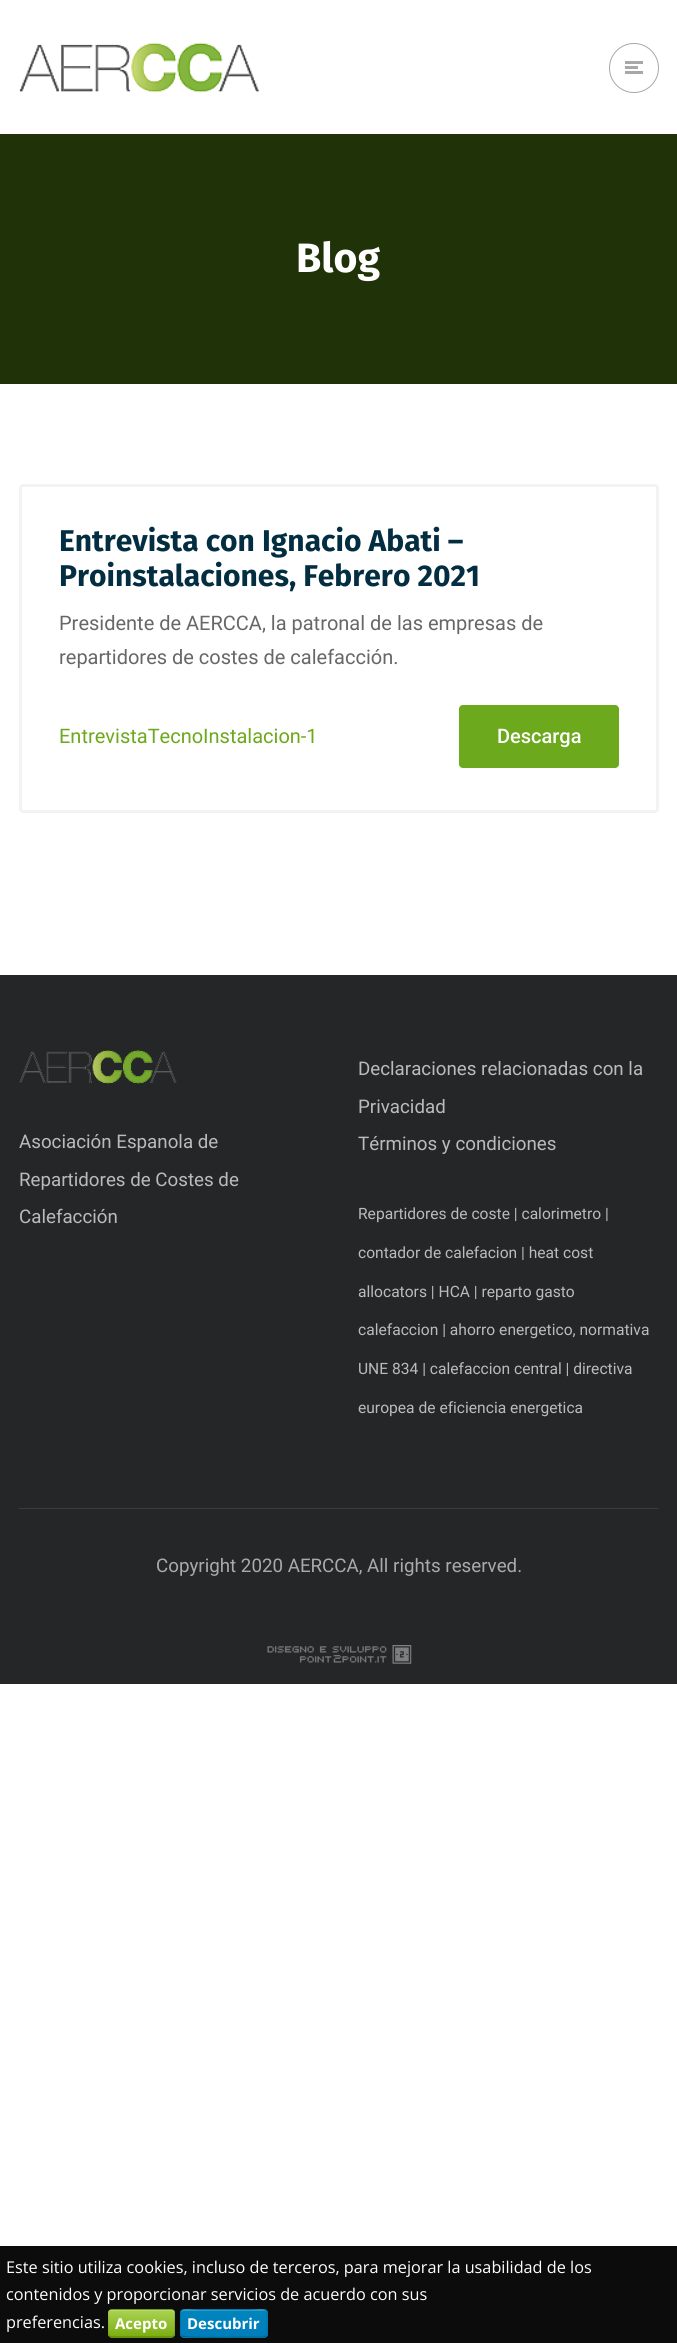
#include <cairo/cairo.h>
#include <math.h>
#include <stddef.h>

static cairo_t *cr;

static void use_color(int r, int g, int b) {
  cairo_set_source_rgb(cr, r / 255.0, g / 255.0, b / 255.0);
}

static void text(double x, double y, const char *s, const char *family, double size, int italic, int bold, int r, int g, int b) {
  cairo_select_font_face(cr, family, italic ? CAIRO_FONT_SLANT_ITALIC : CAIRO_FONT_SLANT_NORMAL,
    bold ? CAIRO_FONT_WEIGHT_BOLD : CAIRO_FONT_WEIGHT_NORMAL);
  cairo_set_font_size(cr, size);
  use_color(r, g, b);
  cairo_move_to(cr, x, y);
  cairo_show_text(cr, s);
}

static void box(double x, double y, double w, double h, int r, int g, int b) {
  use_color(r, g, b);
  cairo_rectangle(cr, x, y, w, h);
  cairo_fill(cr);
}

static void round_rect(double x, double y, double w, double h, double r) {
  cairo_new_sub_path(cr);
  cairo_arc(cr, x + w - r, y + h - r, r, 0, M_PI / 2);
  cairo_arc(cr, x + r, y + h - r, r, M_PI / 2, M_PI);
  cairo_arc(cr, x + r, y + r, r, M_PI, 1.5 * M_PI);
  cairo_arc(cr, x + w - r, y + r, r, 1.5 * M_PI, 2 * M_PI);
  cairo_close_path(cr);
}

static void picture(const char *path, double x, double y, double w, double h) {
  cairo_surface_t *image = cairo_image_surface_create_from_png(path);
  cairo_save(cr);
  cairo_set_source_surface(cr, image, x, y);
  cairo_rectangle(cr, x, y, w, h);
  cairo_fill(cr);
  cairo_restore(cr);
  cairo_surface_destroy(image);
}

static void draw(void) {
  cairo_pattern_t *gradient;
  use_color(255, 255, 255);
  cairo_paint(cr);
  picture("img_01.png", 19, 42, 240, 51);
  cairo_arc(cr, 634, 68, 24.5, 0, 2 * M_PI);
  use_color(168, 168, 168);
  cairo_set_line_width(cr, 1);
  cairo_stroke(cr);
  box(625, 61, 18, 3, 168, 168, 168);
  box(625, 66, 13, 3, 168, 168, 168);
  box(625, 71, 18, 3, 168, 168, 168);
  box(0, 134, 677, 250, 32, 50, 8);
  round_rect(20.5, 485.5, 637, 326, 2.5);
  use_color(243, 243, 243);
  cairo_set_line_width(cr, 3);
  cairo_stroke(cr);
  use_color(108, 169, 28);
  round_rect(459, 705, 160, 63, 4);
  cairo_fill(cr);
  box(0, 975, 677, 709, 37, 38, 40);
  picture("img_02.png", 19, 1050, 158, 34);
  box(19, 1508, 640, 1, 59, 60, 63);
  picture("img_03.png", 267, 1645, 145, 19);
  box(0, 2246, 677, 97, 12, 12, 12);
  use_color(124, 174, 18);
  round_rect(108, 2309, 67, 29, 4);
  cairo_fill(cr);
  cairo_save(cr);
  round_rect(108, 2309, 67, 29, 4);
  cairo_clip(cr);
  gradient = cairo_pattern_create_linear(141, 2310, 141, 2336);
  cairo_pattern_add_color_stop_rgba(gradient, 0, 0.667, 0.827, 0.325, 1);
  cairo_pattern_add_color_stop_rgba(gradient, 1, 0.486, 0.682, 0.071, 1);
  cairo_set_source(cr, gradient);
  cairo_pattern_destroy(gradient);
  cairo_rectangle(cr, 108, 2310, 67, 26);
  cairo_fill(cr);
  cairo_restore(cr);
  cairo_set_source_rgba(cr, 1, 1, 1, 0.2);
  cairo_set_fill_rule(cr, CAIRO_FILL_RULE_EVEN_ODD);
  cairo_new_path(cr);
  cairo_move_to(cr, 111, 2311);
  cairo_line_to(cr, 172, 2311);
  cairo_line_to(cr, 174, 2313);
  cairo_line_to(cr, 174, 2312);
  cairo_curve_to(cr, 174, 2311, 173, 2310, 172, 2310);
  cairo_line_to(cr, 112, 2310);
  cairo_curve_to(cr, 110, 2310, 109, 2311, 109, 2312);
  cairo_curve_to(cr, 109, 2311, 110, 2311, 111, 2311);
  cairo_close_path(cr);
  cairo_move_to(cr, 174, 2333);
  cairo_line_to(cr, 174, 2334);
  cairo_close_path(cr);
  cairo_move_to(cr, 109, 2334);
  cairo_line_to(cr, 109, 2331);
  cairo_close_path(cr);
  cairo_fill(cr);
  cairo_new_path(cr);
  cairo_move_to(cr, 173.5, 2336);
  cairo_line_to(cr, 171.5, 2337);
  cairo_line_to(cr, 111, 2337);
  cairo_line_to(cr, 109, 2336);
  cairo_set_source_rgba(cr, 0, 0, 0, 0.25);
  cairo_set_line_width(cr, 1.2);
  cairo_stroke(cr);
  cairo_new_path(cr);
  cairo_move_to(cr, 109, 2336);
  cairo_curve_to(cr, 107, 2334, 108, 2325.5, 108, 2323);
  cairo_curve_to(cr, 108, 2307.5, 105.5, 2309.5, 121, 2309.5);
  cairo_line_to(cr, 161, 2309.5);
  cairo_curve_to(cr, 177, 2309.5, 174.5, 2307.5, 174.5, 2323);
  cairo_curve_to(cr, 174.5, 2325.5, 175.5, 2334, 173.5, 2336);
  cairo_set_source_rgba(cr, 0, 0, 0, 0.1);
  cairo_stroke(cr);
  use_color(0, 133, 188);
  round_rect(180, 2309, 88, 29, 4);
  cairo_fill(cr);
  cairo_save(cr);
  cairo_set_fill_rule(cr, CAIRO_FILL_RULE_WINDING);
  round_rect(180, 2309, 88, 29, 4);
  cairo_clip(cr);
  gradient = cairo_pattern_create_linear(224, 2310, 224, 2336);
  cairo_pattern_add_color_stop_rgba(gradient, 0, 0, 0.522, 0.737, 1);
  cairo_pattern_add_color_stop_rgba(gradient, 1, 0, 0.494, 0.737, 1);
  cairo_set_source(cr, gradient);
  cairo_pattern_destroy(gradient);
  cairo_rectangle(cr, 180, 2310, 88, 26);
  cairo_fill(cr);
  cairo_restore(cr);
  use_color(51, 157, 201);
  cairo_set_fill_rule(cr, CAIRO_FILL_RULE_WINDING);
  cairo_new_path(cr);
  cairo_move_to(cr, 184, 2311);
  cairo_line_to(cr, 264, 2311);
  cairo_curve_to(cr, 265, 2311, 266, 2312, 266, 2314);
  cairo_curve_to(cr, 266, 2306, 256, 2310, 250, 2310);
  cairo_line_to(cr, 197, 2310);
  cairo_curve_to(cr, 191, 2310, 181, 2306, 181, 2314);
  cairo_curve_to(cr, 181, 2312, 182, 2311, 184, 2311);
  cairo_close_path(cr);
  cairo_fill(cr);
  cairo_new_path(cr);
  cairo_move_to(cr, 266, 2336);
  cairo_line_to(cr, 264, 2337);
  cairo_line_to(cr, 250.5, 2337);
  cairo_curve_to(cr, 243, 2337, 184, 2338, 182, 2336);
  cairo_line_to(cr, 181.5, 2336);
  use_color(0, 100, 141);
  cairo_stroke(cr);
  cairo_new_path(cr);
  cairo_move_to(cr, 181.5, 2336);
  cairo_curve_to(cr, 179.5, 2334, 180.5, 2325.5, 180.5, 2323);
  cairo_curve_to(cr, 180.5, 2306.5, 178.5, 2309.5, 197, 2309.5);
  cairo_line_to(cr, 250.5, 2309.5);
  cairo_curve_to(cr, 270.5, 2309.5, 267, 2306.5, 267, 2326.5);
  cairo_curve_to(cr, 267, 2329, 268, 2334, 266, 2336);
  cairo_set_source_rgba(cr, 0, 0, 0, 0.1);
  cairo_stroke(cr);
  text(296, 272, "Blog", "Fira Sans", 41, 0, 1, 255, 255, 255);
  text(59, 551, "Entrevista con Ignacio Abati –", "Fira Sans", 30, 0, 1, 3, 46, 66);
  text(59, 586, "Proinstalaciones, Febrero 2021", "Fira Sans", 30, 0, 1, 3, 46, 66);
  text(59, 630, "Presidente de AERCCA, la patronal de las empresas de", "Roboto", 20, 0, 0, 103, 103, 103);
  text(59, 664, "repartidores de costes de calefacción.", "Roboto", 20, 0, 0, 103, 103, 103);
  text(59, 743, "EntrevistaTecnoInstalacion-1", "Roboto", 20, 0, 0, 108, 169, 28);
  text(497, 743, "Descarga", "Roboto Medium", 20, 0, 0, 255, 255, 255);
  text(19, 1148, "Asociación Espanola de", "Roboto", 18.75, 0, 0, 187, 187, 187);
  text(19, 1186, "Repartidores de Costes de", "Roboto", 18.75, 0, 0, 187, 187, 187);
  text(19, 1223, "Calefacción", "Roboto", 18.75, 0, 0, 187, 187, 187);
  text(358, 1075, "Declaraciones relacionadas con la", "Roboto", 18.75, 0, 0, 187, 187, 187);
  text(358, 1113, "Privacidad", "Roboto", 18.75, 0, 0, 187, 187, 187);
  text(358, 1150, "Términos y condiciones", "Roboto", 18.75, 0, 0, 187, 187, 187);
  text(358, 1219, "Repartidores de coste | calorimetro |", "Roboto", 15.6, 0, 0, 187, 187, 187);
  text(358, 1258, "contador de calefacion | heat cost", "Roboto", 15.6, 0, 0, 187, 187, 187);
  text(358, 1297, "allocators | HCA | reparto gasto", "Roboto", 15.6, 0, 0, 187, 187, 187);
  text(358, 1335, "calefaccion | ahorro energetico, normativa", "Roboto", 15.6, 0, 0, 187, 187, 187);
  text(358, 1374, "UNE 834 | calefaccion central | directiva", "Roboto", 15.6, 0, 0, 187, 187, 187);
  text(358, 1413, "europea de eficiencia energetica", "Roboto", 15.6, 0, 0, 187, 187, 187);
  text(156, 1572, "Copyright 2020 AERCCA, All rights reserved.", "Roboto", 18.75, 0, 0, 170, 170, 170);
  text(6, 2273, "Este sitio utiliza cookies, incluso de terceros, para mejorar la usabilidad de los", "Open Sans", 16.25, 0, 0, 255, 255, 255);
  text(6, 2300, "contenidos y proporcionar servicios de acuerdo con sus", "Open Sans", 16.25, 0, 0, 255, 255, 255);
  text(6, 2328, "preferencias.", "Open Sans", 16.25, 0, 0, 255, 255, 255);
  text(115, 2329, "Acepto", "Open Sans", 15, 0, 1, 255, 255, 255);
  text(187, 2329, "Descubrir", "Open Sans", 15, 0, 1, 255, 255, 255);
}

int main(void) {
  cairo_surface_t *surface = cairo_image_surface_create(CAIRO_FORMAT_RGB24, 677, 2343);
  cr = cairo_create(surface);
  cairo_font_options_t *options = cairo_font_options_create();
  cairo_font_options_set_hint_metrics(options, CAIRO_HINT_METRICS_OFF);
  cairo_font_options_set_hint_style(options, CAIRO_HINT_STYLE_NONE);
  cairo_set_font_options(cr, options);
  cairo_set_miter_limit(cr, 4);
  draw();
  cairo_surface_write_to_png(surface, "out.png");
  cairo_font_options_destroy(options);
  cairo_destroy(cr);
  cairo_surface_destroy(surface);
  return 0;
}
